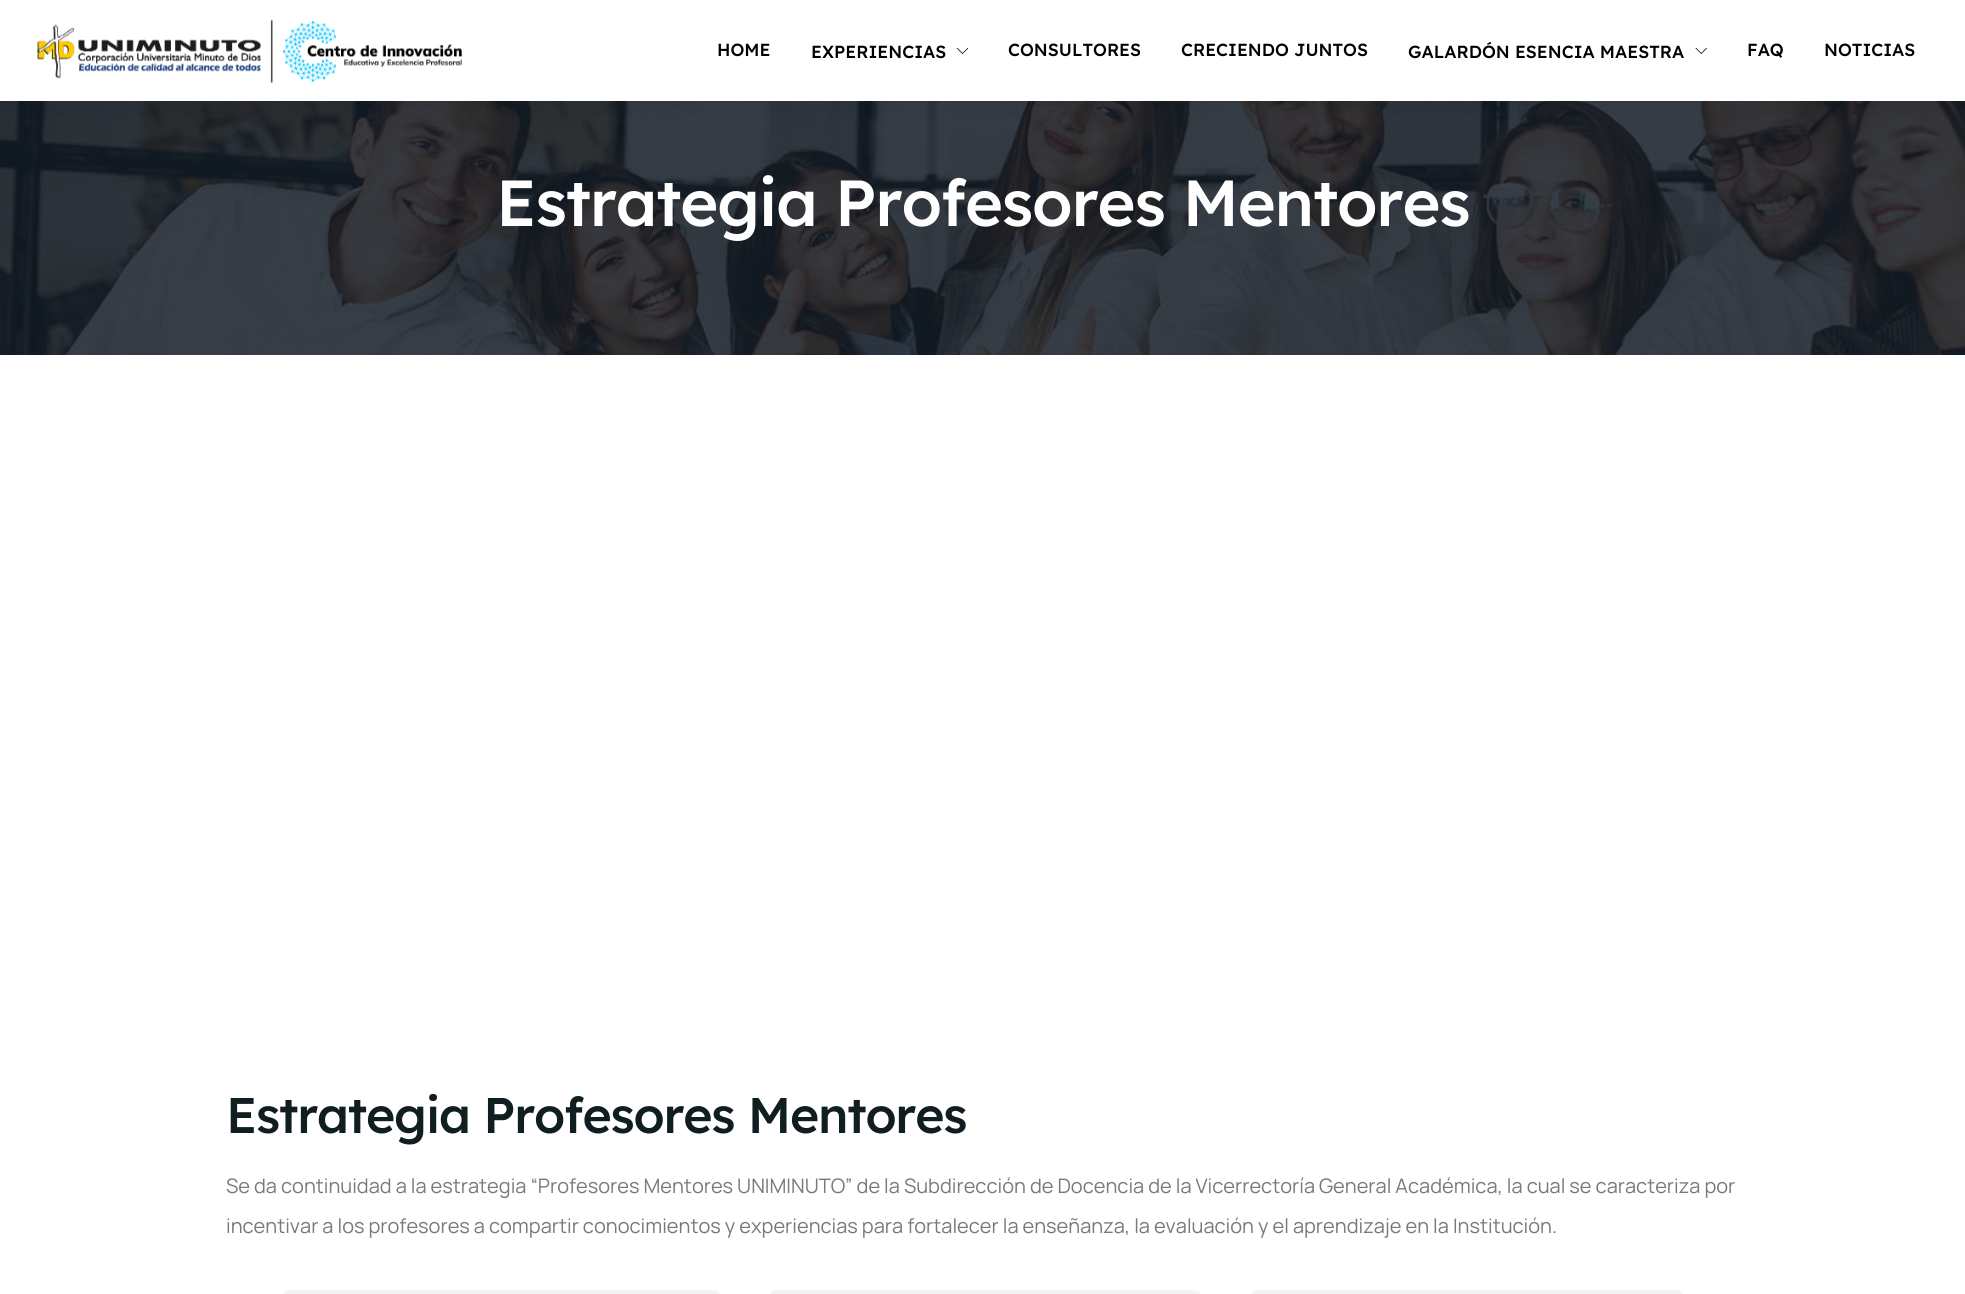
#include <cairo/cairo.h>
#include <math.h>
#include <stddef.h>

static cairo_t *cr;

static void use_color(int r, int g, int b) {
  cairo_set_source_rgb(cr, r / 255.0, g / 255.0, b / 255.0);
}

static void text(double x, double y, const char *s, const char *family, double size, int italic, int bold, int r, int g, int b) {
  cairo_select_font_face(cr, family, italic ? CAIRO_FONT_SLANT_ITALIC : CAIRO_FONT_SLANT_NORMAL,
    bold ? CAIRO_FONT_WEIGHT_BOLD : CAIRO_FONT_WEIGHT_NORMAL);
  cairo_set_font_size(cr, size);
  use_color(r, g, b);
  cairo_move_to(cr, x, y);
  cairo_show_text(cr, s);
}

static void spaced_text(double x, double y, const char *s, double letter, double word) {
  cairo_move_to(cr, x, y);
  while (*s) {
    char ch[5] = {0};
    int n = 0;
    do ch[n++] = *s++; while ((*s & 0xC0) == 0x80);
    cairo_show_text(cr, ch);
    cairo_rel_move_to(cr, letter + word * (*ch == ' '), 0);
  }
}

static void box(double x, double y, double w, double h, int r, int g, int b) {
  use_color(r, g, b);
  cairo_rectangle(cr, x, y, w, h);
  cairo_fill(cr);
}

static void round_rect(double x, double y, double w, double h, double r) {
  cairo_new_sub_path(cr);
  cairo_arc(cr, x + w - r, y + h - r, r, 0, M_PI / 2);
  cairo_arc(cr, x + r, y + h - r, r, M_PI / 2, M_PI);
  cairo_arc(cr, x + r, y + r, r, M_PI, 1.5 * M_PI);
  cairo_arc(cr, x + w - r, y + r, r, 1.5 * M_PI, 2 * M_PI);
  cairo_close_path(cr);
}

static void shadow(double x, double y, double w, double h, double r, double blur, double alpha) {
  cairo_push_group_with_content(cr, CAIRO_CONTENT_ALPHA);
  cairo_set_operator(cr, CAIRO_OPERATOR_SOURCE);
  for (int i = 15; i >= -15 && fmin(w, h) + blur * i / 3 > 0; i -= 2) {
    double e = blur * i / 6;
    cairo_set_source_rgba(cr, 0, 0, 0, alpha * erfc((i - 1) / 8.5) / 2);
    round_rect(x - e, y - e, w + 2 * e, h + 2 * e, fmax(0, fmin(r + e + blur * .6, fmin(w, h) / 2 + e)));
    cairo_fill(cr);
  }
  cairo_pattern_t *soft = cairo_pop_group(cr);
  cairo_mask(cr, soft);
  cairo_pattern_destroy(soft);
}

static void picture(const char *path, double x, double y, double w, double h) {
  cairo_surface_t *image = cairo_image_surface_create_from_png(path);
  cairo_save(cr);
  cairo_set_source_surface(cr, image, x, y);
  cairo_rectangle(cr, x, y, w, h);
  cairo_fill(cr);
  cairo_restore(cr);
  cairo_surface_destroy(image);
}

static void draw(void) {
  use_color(255, 255, 255);
  cairo_paint(cr);
  picture("img_04.png", 0, 101, 1965, 254);
  use_color(0, 0, 0);
  shadow(1, 1, 1963, 99, 0, 12.5, 0.1);
  box(0, 0, 1965, 101, 255, 255, 255);
  picture("img_01.png", 37, 19, 425, 64);
  picture("img_02.png", 956, 47, 13, 7);
  picture("img_03.png", 1695, 47, 12, 7);
  use_color(244, 244, 244);
  round_rect(283, 1290, 437, 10, 6);
  cairo_fill(cr);
  round_rect(770, 1290, 431, 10, 6);
  cairo_fill(cr);
  round_rect(1251, 1290, 432, 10, 6);
  cairo_fill(cr);
  text(717, 56, "HOME", "Lexend Medium", 17.5, 0, 0, 0, 0, 0);
  text(811, 58, "EXPERIENCIAS", "Lexend Medium", 17.5, 0, 0, 0, 0, 0);
  text(1008, 56, "CONSULTORES", "Lexend Medium", 17.5, 0, 0, 0, 0, 0);
  text(1181, 56, "CRECIENDO JUNTOS", "Lexend Medium", 17.5, 0, 0, 0, 0, 0);
  text(1408, 58, "GALARDÓN ESENCIA MAESTRA", "Lexend Medium", 17.5, 0, 0, 0, 0, 0);
  text(1747, 56, "FAQ", "Lexend Medium", 17.5, 0, 0, 0, 0, 0);
  text(1824, 56, "NOTICIAS", "Lexend Medium", 17.5, 0, 0, 0, 0, 0);
  cairo_set_font_size(cr, 65);
  use_color(255, 255, 255);
  spaced_text(496, 226, "Estrategia Profesores Mentores", -1.25, 0);
  cairo_set_font_size(cr, 50);
  use_color(17, 30, 33);
  spaced_text(226, 1133, "Estrategia Profesores Mentores", -1.25, 0);
  text(226, 1193, "Se da continuidad a la estrategia “Profesores Mentores UNIMINUTO” de la Subdirección de Docencia de la Vicerrectoría General Académica, la cual se caracteriza por", "Manrope ExtraLight", 20, 0, 0, 121, 121, 121);
  text(226, 1233, "incentivar a los profesores a compartir conocimientos y experiencias para fortalecer la enseñanza, la evaluación y el aprendizaje en la Institución.", "Manrope ExtraLight", 20, 0, 0, 121, 121, 121);
}

int main(void) {
  cairo_surface_t *surface = cairo_image_surface_create(CAIRO_FORMAT_RGB24, 1965, 1294);
  cr = cairo_create(surface);
  cairo_font_options_t *options = cairo_font_options_create();
  cairo_font_options_set_hint_metrics(options, CAIRO_HINT_METRICS_OFF);
  cairo_font_options_set_hint_style(options, CAIRO_HINT_STYLE_NONE);
  cairo_set_font_options(cr, options);
  cairo_set_miter_limit(cr, 4);
  draw();
  cairo_surface_write_to_png(surface, "out.png");
  cairo_font_options_destroy(options);
  cairo_destroy(cr);
  cairo_surface_destroy(surface);
  return 0;
}
